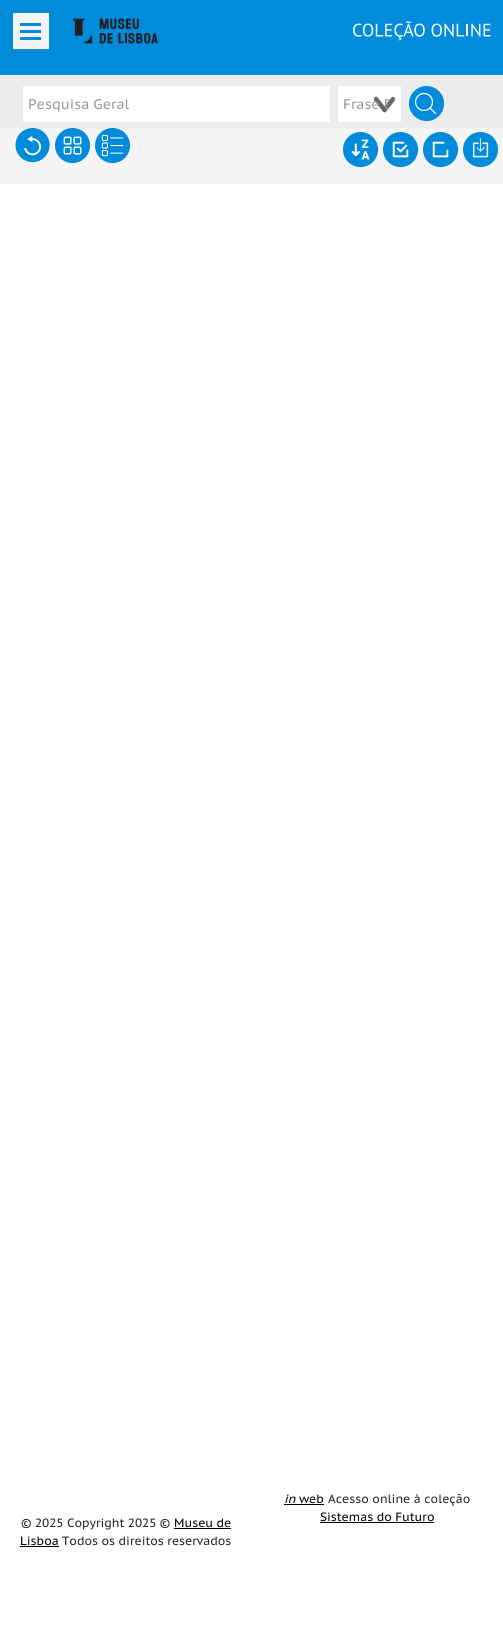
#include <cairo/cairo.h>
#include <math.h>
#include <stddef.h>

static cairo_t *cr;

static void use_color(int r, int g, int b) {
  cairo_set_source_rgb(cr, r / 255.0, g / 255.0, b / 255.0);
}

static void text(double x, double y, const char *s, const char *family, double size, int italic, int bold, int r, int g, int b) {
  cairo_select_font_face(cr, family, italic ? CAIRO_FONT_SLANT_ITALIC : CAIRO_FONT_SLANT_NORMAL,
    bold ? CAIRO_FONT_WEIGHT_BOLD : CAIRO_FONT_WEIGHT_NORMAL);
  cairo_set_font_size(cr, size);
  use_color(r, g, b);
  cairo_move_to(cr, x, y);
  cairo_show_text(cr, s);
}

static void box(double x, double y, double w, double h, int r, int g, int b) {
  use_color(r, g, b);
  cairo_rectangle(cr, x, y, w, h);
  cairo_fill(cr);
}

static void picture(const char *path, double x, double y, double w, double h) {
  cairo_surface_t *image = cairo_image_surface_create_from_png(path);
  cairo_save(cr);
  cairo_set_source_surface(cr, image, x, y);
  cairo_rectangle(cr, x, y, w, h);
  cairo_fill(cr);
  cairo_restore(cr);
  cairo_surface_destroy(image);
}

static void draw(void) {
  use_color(255, 255, 255);
  cairo_paint(cr);
  box(0, 0, 503, 75, 0, 139, 219);
  picture("img_01.png", 13, 13, 36, 36);
  picture("img_02.png", 73, 18, 85, 26);
  picture("img_03.png", 353, 21, 138, 20);
  box(0, 128, 503, 56, 244, 244, 244);
  box(0, 75, 503, 53, 236, 236, 236);
  box(23, 86, 307, 36, 255, 255, 255);
  box(338, 86, 63, 36, 255, 255, 255);
  picture("img_04.png", 374, 96, 21, 17);
  picture("img_05.png", 409, 86, 36, 36);
  picture("img_06.png", 15, 128, 35, 35);
  picture("img_07.png", 55, 128, 36, 36);
  picture("img_08.png", 95, 128, 36, 36);
  picture("img_09.png", 343, 132, 36, 36);
  picture("img_10.png", 383, 132, 36, 36);
  picture("img_11.png", 423, 132, 36, 36);
  picture("img_12.png", 463, 132, 36, 36);
  box(284, 1504, 40, 1, 0, 0, 0);
  box(320, 1522, 114, 1, 0, 0, 0);
  box(174, 1528, 57, 1, 0, 0, 0);
  box(20, 1546, 39, 1, 0, 0, 0);
  text(28, 109, "Pesquisa Geral", "PT Sans Caption", 14, 0, 0, 153, 153, 153);
  cairo_save(cr);
  cairo_rectangle(cr, 343, 94, 46, 21);
  cairo_clip(cr);
  text(343, 109, "Frase E", "PT Sans Caption", 14, 0, 0, 153, 153, 153);
  cairo_restore(cr);
  text(284, 1503, "in", "PT Sans Caption", 12, 1, 0, 0, 0, 0);
  text(299, 1503, "web", "PT Sans Caption", 12, 0, 0, 0, 0, 0);
  text(328, 1503, "Acesso online à coleção", "PT Sans Caption", 12, 0, 0, 33, 37, 41);
  text(320, 1521, "Sistemas do Futuro", "PT Sans Caption", 12, 0, 0, 0, 0, 0);
  text(21, 1527, "© 2025 Copyright 2025 ©", "PT Sans Caption", 12, 0, 0, 33, 37, 41);
  text(174, 1527, "Museu de", "PT Sans Caption", 12, 0, 0, 0, 0, 0);
  text(20, 1545, "Lisboa", "PT Sans Caption", 12, 0, 0, 0, 0, 0);
  text(62, 1545, "Todos os direitos reservados", "PT Sans Caption", 12, 0, 0, 33, 37, 41);
}

int main(void) {
  cairo_surface_t *surface = cairo_image_surface_create(CAIRO_FORMAT_RGB24, 503, 1650);
  cr = cairo_create(surface);
  cairo_font_options_t *options = cairo_font_options_create();
  cairo_font_options_set_hint_metrics(options, CAIRO_HINT_METRICS_OFF);
  cairo_font_options_set_hint_style(options, CAIRO_HINT_STYLE_NONE);
  cairo_set_font_options(cr, options);
  cairo_set_miter_limit(cr, 4);
  draw();
  cairo_surface_write_to_png(surface, "out.png");
  cairo_font_options_destroy(options);
  cairo_destroy(cr);
  cairo_surface_destroy(surface);
  return 0;
}
